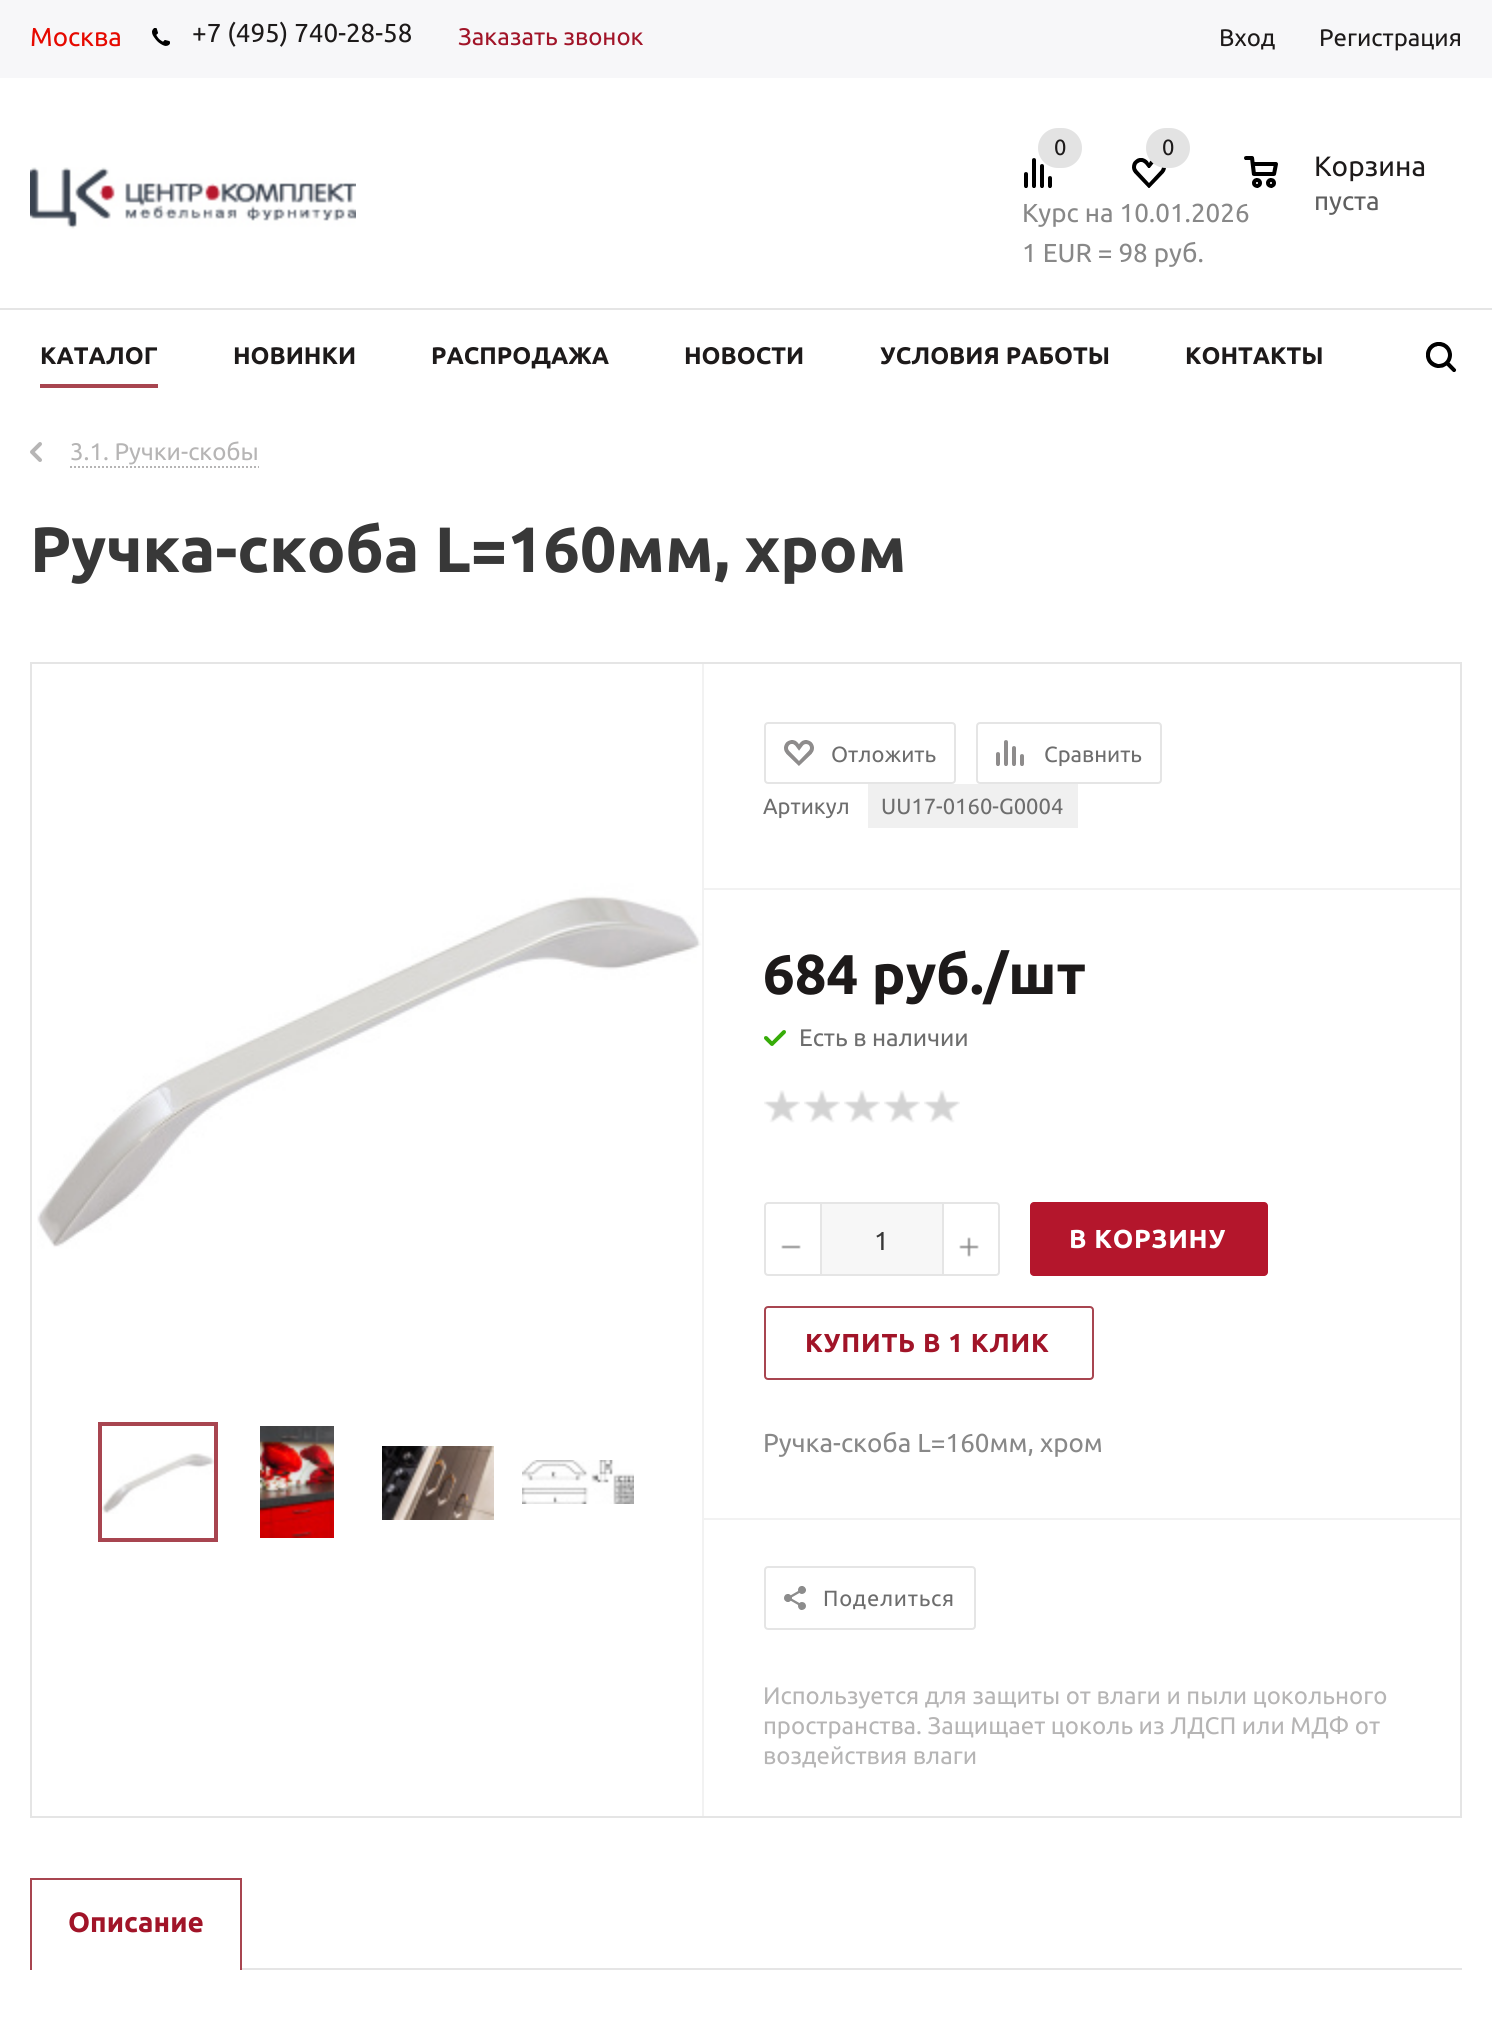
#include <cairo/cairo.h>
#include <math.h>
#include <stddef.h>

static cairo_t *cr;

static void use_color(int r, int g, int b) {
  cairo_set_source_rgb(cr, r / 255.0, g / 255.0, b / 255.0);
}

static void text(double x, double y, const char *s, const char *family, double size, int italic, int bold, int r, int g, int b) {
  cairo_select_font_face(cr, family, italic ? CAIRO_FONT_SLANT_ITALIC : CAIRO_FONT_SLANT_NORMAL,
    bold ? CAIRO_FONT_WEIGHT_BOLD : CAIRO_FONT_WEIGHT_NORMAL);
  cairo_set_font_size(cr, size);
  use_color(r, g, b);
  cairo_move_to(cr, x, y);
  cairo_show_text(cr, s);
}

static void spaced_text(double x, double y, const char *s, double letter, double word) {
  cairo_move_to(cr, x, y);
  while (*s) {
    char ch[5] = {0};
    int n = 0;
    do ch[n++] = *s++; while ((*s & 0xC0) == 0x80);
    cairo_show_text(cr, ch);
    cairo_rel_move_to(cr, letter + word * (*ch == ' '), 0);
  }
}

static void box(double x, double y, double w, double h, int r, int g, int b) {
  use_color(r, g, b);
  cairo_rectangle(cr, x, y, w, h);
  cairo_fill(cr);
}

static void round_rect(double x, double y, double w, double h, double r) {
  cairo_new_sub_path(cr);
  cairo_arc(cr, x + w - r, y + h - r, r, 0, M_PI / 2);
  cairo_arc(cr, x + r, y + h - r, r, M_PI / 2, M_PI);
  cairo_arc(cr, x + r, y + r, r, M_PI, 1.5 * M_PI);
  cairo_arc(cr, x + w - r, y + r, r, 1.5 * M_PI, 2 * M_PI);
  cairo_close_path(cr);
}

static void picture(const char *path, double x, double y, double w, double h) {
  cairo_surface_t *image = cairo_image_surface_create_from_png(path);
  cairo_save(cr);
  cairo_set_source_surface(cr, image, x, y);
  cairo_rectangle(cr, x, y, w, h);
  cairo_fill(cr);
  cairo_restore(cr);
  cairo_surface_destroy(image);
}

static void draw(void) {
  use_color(255, 255, 255);
  cairo_paint(cr);
  box(0, 0, 1492, 78, 247, 247, 249);
  picture("img_01.png", 152, 28, 18, 18);
  box(0, 308, 1492, 2, 229, 229, 229);
  picture("img_02.png", 30, 167, 326, 62);
  picture("img_03.png", 1024, 158, 28, 30);
  use_color(227, 227, 227);
  round_rect(1038, 128, 44, 40, 20);
  cairo_fill(cr);
  picture("img_04.png", 1132, 158, 34, 30);
  round_rect(1146, 128, 44, 40, 20);
  cairo_fill(cr);
  picture("img_05.png", 1244, 156, 34, 32);
  box(40, 384, 118, 4, 168, 69, 80);
  picture("img_06.png", 1426, 342, 31, 30);
  picture("img_07.png", 30, 442, 12, 20);
  cairo_new_path(cr);
  cairo_move_to(cr, 70, 467);
  cairo_line_to(cr, 259, 467);
  use_color(182, 181, 181);
  cairo_set_dash(cr, (double[]){2, 2}, 2, 0);
  cairo_stroke(cr);
  cairo_rectangle(cr, 31, 663, 1430, 1154);
  use_color(229, 229, 229);
  cairo_set_dash(cr, NULL, 0, 0);
  cairo_stroke(cr);
  picture("img_08.png", 37, 726, 665, 672);
  cairo_rectangle(cr, 100, 1424, 116, 116);
  use_color(168, 69, 80);
  cairo_set_line_width(cr, 4);
  cairo_stroke(cr);
  picture("img_09.png", 102, 1453, 112, 61);
  picture("img_10.png", 260, 1426, 74, 112);
  picture("img_11.png", 382, 1446, 112, 74);
  picture("img_12.png", 522, 1460, 112, 44);
  box(702, 664, 2, 1152, 242, 242, 242);
  box(704, 888, 756, 2, 242, 242, 242);
  round_rect(765, 723, 190, 60, 3);
  use_color(229, 229, 229);
  cairo_set_line_width(cr, 2);
  cairo_stroke(cr);
  picture("img_13.png", 784, 740, 30, 26);
  round_rect(977, 723, 184, 60, 3);
  cairo_stroke(cr);
  picture("img_14.png", 996, 740, 28, 26);
  box(868, 784, 210, 44, 240, 240, 240);
  box(704, 1518, 756, 2, 242, 242, 242);
  picture("img_15.png", 764, 1030, 22, 16);
  picture("img_16.png", 764, 1090, 36, 33);
  picture("img_16.png", 804, 1090, 36, 33);
  picture("img_16.png", 844, 1090, 36, 33);
  picture("img_16.png", 884, 1090, 36, 33);
  picture("img_16.png", 924, 1090, 36, 33);
  round_rect(765, 1203, 234, 72, 3);
  use_color(229, 229, 229);
  cairo_stroke(cr);
  picture("img_17.png", 781, 1245, 20, 4);
  box(822, 1204, 120, 70, 247, 247, 247);
  box(942, 1204, 2, 70, 229, 229, 229);
  box(820, 1204, 2, 70, 229, 229, 229);
  picture("img_18.png", 959, 1237, 20, 20);
  use_color(180, 22, 44);
  round_rect(1030, 1202, 238, 74, 4);
  cairo_fill(cr);
  round_rect(765, 1307, 328, 72, 3);
  use_color(168, 69, 80);
  cairo_stroke(cr);
  round_rect(765, 1567, 210, 62, 3);
  use_color(229, 229, 229);
  cairo_stroke(cr);
  picture("img_19.png", 784, 1586, 22, 24);
  cairo_save(cr);
  cairo_rectangle(cr, 30, 1858, 1432, 112);
  cairo_clip(cr);
  cairo_rectangle(cr, 31, 1879, 210, 92);
  use_color(168, 69, 80);
  cairo_stroke(cr);
  cairo_restore(cr);
  box(242, 1968, 1220, 2, 229, 229, 229);
  text(30, 46, "Москва", "Ubuntu", 26, 0, 0, 230, 9, 0);
  text(192, 42, "+7 (495) 740-28-58", "Ubuntu", 26, 0, 0, 29, 26, 26);
  text(458, 45, "Заказать звонок", "Ubuntu", 24, 0, 0, 161, 20, 40);
  text(1219, 46, "Вход", "Ubuntu", 24, 0, 0, 29, 26, 26);
  text(1319, 46, "Регистрация", "Ubuntu", 24, 0, 0, 29, 26, 26);
  text(1054, 155, "0", "Ubuntu", 22, 0, 0, 29, 26, 26);
  text(1162, 155, "0", "Ubuntu", 22, 0, 0, 29, 26, 26);
  text(1314, 176, "Корзина", "Ubuntu", 28, 0, 0, 29, 26, 26);
  text(1314, 210, "пуста", "Ubuntu", 26, 0, 0, 95, 95, 95);
  text(1022, 222, "Курс на 10.01.2026", "Ubuntu", 26, 0, 0, 136, 136, 136);
  text(1022, 262, "1 EUR = 98 руб.", "Ubuntu", 26, 0, 0, 136, 136, 136);
  text(40, 364, "КАТАЛОГ", "Ubuntu", 24, 0, 1, 29, 26, 26);
  text(233, 364, "НОВИНКИ", "Ubuntu", 24, 0, 1, 29, 26, 26);
  text(431, 364, "РАСПРОДАЖА", "Ubuntu", 24, 0, 1, 29, 26, 26);
  text(684, 364, "НОВОСТИ", "Ubuntu", 24, 0, 1, 29, 26, 26);
  text(880, 364, "УСЛОВИЯ РАБОТЫ", "Ubuntu", 24, 0, 1, 29, 26, 26);
  text(1185, 364, "КОНТАКТЫ", "Ubuntu", 24, 0, 1, 29, 26, 26);
  text(70, 460, "3.1. Ручки-скобы", "Ubuntu", 24, 0, 0, 182, 181, 181);
  text(30, 572, "Ручка-скоба L=160мм, хром", "Ubuntu", 64, 0, 1, 56, 56, 56);
  text(831, 762, "Отложить", "Ubuntu", 22, 0, 0, 109, 109, 109);
  text(1044, 762, "Сравнить", "Ubuntu", 22, 0, 0, 109, 109, 109);
  text(763, 814, "Артикул", "Ubuntu", 22, 0, 0, 109, 109, 109);
  text(881, 814, "UU17-0160-G0004", "Ubuntu", 22, 0, 0, 109, 109, 109);
  text(763, 994, "684 руб./шт", "Ubuntu", 56, 0, 1, 29, 26, 26);
  text(799, 1046, "Есть в наличии", "Ubuntu", 24, 0, 0, 109, 109, 109);
  text(874, 1250, "1", "Ubuntu", 26, 0, 0, 56, 56, 56);
  cairo_select_font_face(cr, "Ubuntu", CAIRO_FONT_SLANT_NORMAL, CAIRO_FONT_WEIGHT_BOLD);
  use_color(255, 255, 255);
  spaced_text(1069, 1248, "В КОРЗИНУ", 0.75, 0);
  use_color(161, 20, 40);
  spaced_text(805, 1352, "КУПИТЬ В 1 КЛИК", 0.75, 0);
  text(763, 1452, "Ручка-скоба L=160мм, хром", "Ubuntu", 26, 0, 0, 136, 136, 136);
  cairo_set_font_size(cr, 22);
  use_color(109, 109, 109);
  spaced_text(823, 1606, "Поделиться", 0.75, 0);
  text(763, 1704, "Используется для защиты от влаги и пыли цокольного", "Ubuntu", 24, 0, 0, 182, 181, 181);
  text(763, 1734, "пространства. Защищает цоколь из ЛДСП или МДФ от", "Ubuntu", 24, 0, 0, 182, 181, 181);
  text(763, 1764, "воздействия влаги", "Ubuntu", 24, 0, 0, 182, 181, 181);
  text(68, 1932, "Описание", "Ubuntu", 28, 0, 1, 161, 20, 40);
}

int main(void) {
  cairo_surface_t *surface = cairo_image_surface_create(CAIRO_FORMAT_RGB24, 1492, 2019);
  cr = cairo_create(surface);
  cairo_font_options_t *options = cairo_font_options_create();
  cairo_font_options_set_hint_metrics(options, CAIRO_HINT_METRICS_OFF);
  cairo_font_options_set_hint_style(options, CAIRO_HINT_STYLE_NONE);
  cairo_set_font_options(cr, options);
  cairo_set_miter_limit(cr, 4);
  draw();
  cairo_surface_write_to_png(surface, "out.png");
  cairo_font_options_destroy(options);
  cairo_destroy(cr);
  cairo_surface_destroy(surface);
  return 0;
}
